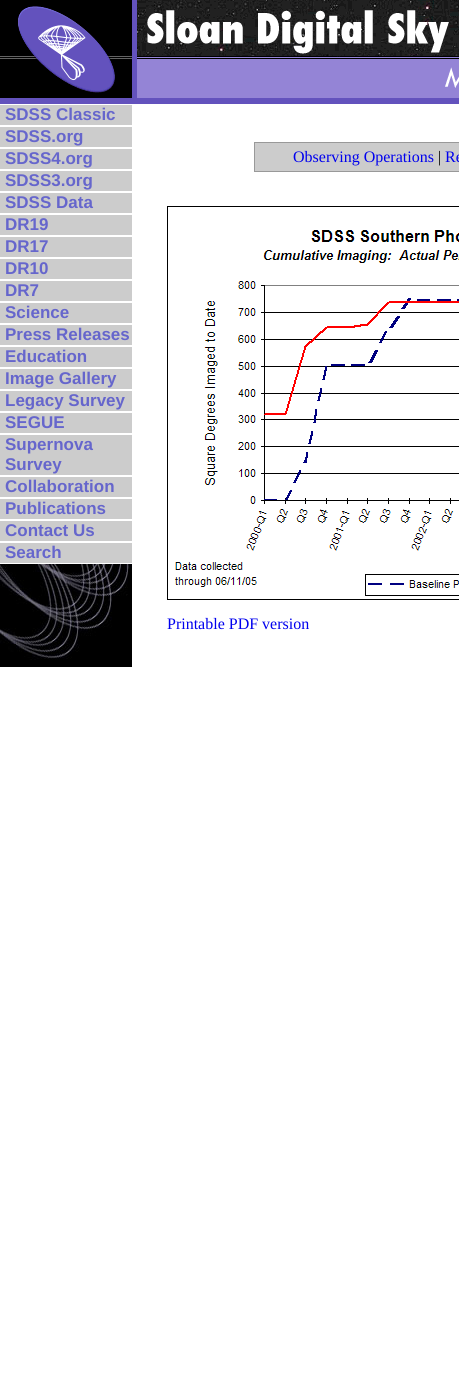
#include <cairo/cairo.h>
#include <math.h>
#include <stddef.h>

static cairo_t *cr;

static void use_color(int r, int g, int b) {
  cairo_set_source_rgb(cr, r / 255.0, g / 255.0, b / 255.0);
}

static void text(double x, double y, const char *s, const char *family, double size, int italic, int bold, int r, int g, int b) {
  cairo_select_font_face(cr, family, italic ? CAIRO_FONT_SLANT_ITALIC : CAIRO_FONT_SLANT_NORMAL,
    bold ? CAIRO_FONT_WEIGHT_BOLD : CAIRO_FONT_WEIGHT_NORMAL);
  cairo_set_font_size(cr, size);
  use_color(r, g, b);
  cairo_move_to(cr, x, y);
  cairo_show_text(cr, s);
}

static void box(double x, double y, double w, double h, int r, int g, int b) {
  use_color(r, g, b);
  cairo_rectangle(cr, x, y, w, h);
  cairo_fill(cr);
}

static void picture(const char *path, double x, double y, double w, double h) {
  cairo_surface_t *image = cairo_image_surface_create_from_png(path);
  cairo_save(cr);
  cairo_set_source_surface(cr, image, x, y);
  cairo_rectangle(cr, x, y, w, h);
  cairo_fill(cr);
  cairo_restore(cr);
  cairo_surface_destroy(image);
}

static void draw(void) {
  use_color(255, 255, 255);
  cairo_paint(cr);
  picture("img_01.png", 0, 0, 459, 104);
  box(0, 105, 132, 20, 204, 204, 204);
  box(0, 127, 132, 20, 204, 204, 204);
  box(0, 149, 132, 20, 204, 204, 204);
  box(0, 171, 132, 20, 204, 204, 204);
  box(0, 193, 132, 20, 204, 204, 204);
  box(0, 215, 132, 20, 204, 204, 204);
  box(0, 237, 132, 20, 204, 204, 204);
  box(0, 259, 132, 20, 204, 204, 204);
  box(0, 281, 132, 20, 204, 204, 204);
  box(0, 303, 132, 20, 204, 204, 204);
  box(0, 325, 132, 20, 204, 204, 204);
  box(0, 347, 132, 20, 204, 204, 204);
  box(0, 369, 132, 20, 204, 204, 204);
  box(0, 391, 132, 20, 204, 204, 204);
  box(0, 413, 132, 20, 204, 204, 204);
  box(0, 435, 132, 40, 204, 204, 204);
  box(0, 477, 132, 20, 204, 204, 204);
  box(0, 499, 132, 20, 204, 204, 204);
  box(0, 521, 132, 20, 204, 204, 204);
  box(0, 543, 132, 20, 204, 204, 204);
  picture("img_02.png", 0, 564, 132, 103);
  cairo_rectangle(cr, 254.5, 142.5, 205, 29);
  cairo_fill_preserve(cr);
  use_color(153, 153, 153);
  cairo_set_line_width(cr, 1);
  cairo_stroke(cr);
  picture("img_03.png", 167, 206, 292, 394);
  text(5, 120, "SDSS Classic", "Liberation Sans", 17, 0, 1, 102, 102, 204);
  text(5, 142, "SDSS.org", "Liberation Sans", 17, 0, 1, 102, 102, 204);
  text(5, 164, "SDSS4.org", "Liberation Sans", 17, 0, 1, 102, 102, 204);
  text(5, 186, "SDSS3.org", "Liberation Sans", 17, 0, 1, 102, 102, 204);
  text(5, 208, "SDSS Data", "Liberation Sans", 17, 0, 1, 102, 102, 204);
  text(5, 230, "DR19", "Liberation Sans", 17, 0, 1, 102, 102, 204);
  text(5, 252, "DR17", "Liberation Sans", 17, 0, 1, 102, 102, 204);
  text(5, 274, "DR10", "Liberation Sans", 17, 0, 1, 102, 102, 204);
  text(5, 296, "DR7", "Liberation Sans", 17, 0, 1, 102, 102, 204);
  text(5, 318, "Science", "Liberation Sans", 17, 0, 1, 102, 102, 204);
  text(5, 340, "Press Releases", "Liberation Sans", 17, 0, 1, 102, 102, 204);
  text(5, 362, "Education", "Liberation Sans", 17, 0, 1, 102, 102, 204);
  text(5, 384, "Image Gallery", "Liberation Sans", 17, 0, 1, 102, 102, 204);
  text(5, 406, "Legacy Survey", "Liberation Sans", 17, 0, 1, 102, 102, 204);
  text(5, 428, "SEGUE", "Liberation Sans", 17, 0, 1, 102, 102, 204);
  text(5, 450, "Supernova", "Liberation Sans", 17, 0, 1, 102, 102, 204);
  text(5, 470, "Survey", "Liberation Sans", 17, 0, 1, 102, 102, 204);
  text(5, 492, "Collaboration", "Liberation Sans", 17, 0, 1, 102, 102, 204);
  text(5, 514, "Publications", "Liberation Sans", 17, 0, 1, 102, 102, 204);
  text(5, 536, "Contact Us", "Liberation Sans", 17, 0, 1, 102, 102, 204);
  text(5, 558, "Search", "Liberation Sans", 17, 0, 1, 102, 102, 204);
  text(293, 162, "Observing Operations", "Liberation Serif", 16, 0, 0, 0, 0, 238);
  text(438, 162, "|", "Liberation Serif", 16, 0, 0, 0, 0, 0);
  text(445, 162, "Re", "Liberation Serif", 16, 0, 0, 0, 0, 238);
  text(167, 629, "Printable PDF version", "Liberation Serif", 16, 0, 0, 0, 0, 238);
}

int main(void) {
  cairo_surface_t *surface = cairo_image_surface_create(CAIRO_FORMAT_RGB24, 459, 1391);
  cr = cairo_create(surface);
  cairo_font_options_t *options = cairo_font_options_create();
  cairo_font_options_set_hint_metrics(options, CAIRO_HINT_METRICS_OFF);
  cairo_font_options_set_hint_style(options, CAIRO_HINT_STYLE_NONE);
  cairo_set_font_options(cr, options);
  cairo_set_miter_limit(cr, 4);
  draw();
  cairo_surface_write_to_png(surface, "out.png");
  cairo_font_options_destroy(options);
  cairo_destroy(cr);
  cairo_surface_destroy(surface);
  return 0;
}
